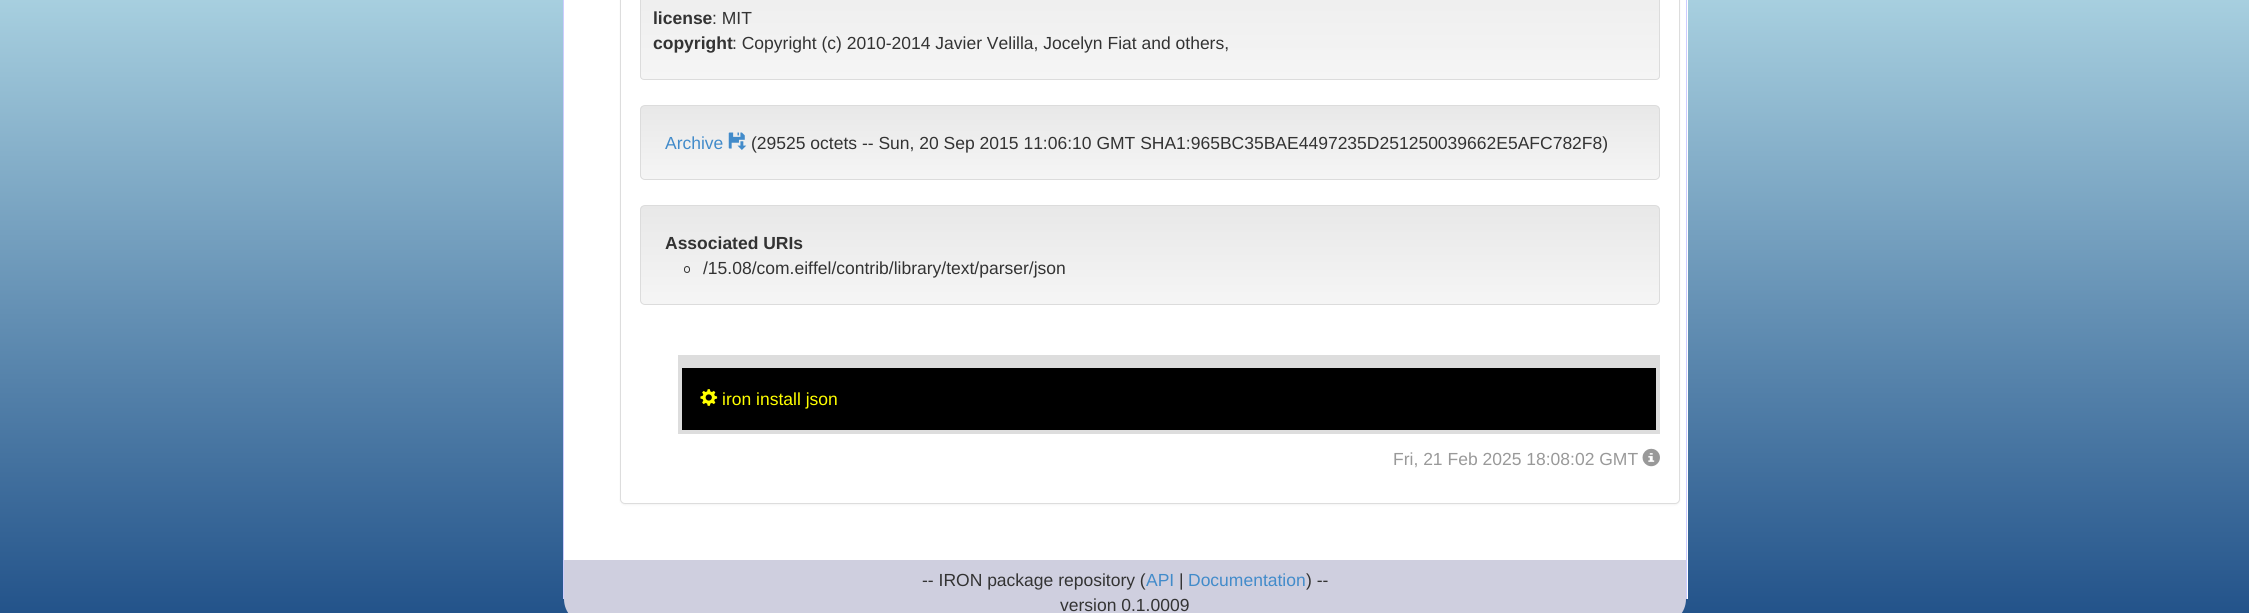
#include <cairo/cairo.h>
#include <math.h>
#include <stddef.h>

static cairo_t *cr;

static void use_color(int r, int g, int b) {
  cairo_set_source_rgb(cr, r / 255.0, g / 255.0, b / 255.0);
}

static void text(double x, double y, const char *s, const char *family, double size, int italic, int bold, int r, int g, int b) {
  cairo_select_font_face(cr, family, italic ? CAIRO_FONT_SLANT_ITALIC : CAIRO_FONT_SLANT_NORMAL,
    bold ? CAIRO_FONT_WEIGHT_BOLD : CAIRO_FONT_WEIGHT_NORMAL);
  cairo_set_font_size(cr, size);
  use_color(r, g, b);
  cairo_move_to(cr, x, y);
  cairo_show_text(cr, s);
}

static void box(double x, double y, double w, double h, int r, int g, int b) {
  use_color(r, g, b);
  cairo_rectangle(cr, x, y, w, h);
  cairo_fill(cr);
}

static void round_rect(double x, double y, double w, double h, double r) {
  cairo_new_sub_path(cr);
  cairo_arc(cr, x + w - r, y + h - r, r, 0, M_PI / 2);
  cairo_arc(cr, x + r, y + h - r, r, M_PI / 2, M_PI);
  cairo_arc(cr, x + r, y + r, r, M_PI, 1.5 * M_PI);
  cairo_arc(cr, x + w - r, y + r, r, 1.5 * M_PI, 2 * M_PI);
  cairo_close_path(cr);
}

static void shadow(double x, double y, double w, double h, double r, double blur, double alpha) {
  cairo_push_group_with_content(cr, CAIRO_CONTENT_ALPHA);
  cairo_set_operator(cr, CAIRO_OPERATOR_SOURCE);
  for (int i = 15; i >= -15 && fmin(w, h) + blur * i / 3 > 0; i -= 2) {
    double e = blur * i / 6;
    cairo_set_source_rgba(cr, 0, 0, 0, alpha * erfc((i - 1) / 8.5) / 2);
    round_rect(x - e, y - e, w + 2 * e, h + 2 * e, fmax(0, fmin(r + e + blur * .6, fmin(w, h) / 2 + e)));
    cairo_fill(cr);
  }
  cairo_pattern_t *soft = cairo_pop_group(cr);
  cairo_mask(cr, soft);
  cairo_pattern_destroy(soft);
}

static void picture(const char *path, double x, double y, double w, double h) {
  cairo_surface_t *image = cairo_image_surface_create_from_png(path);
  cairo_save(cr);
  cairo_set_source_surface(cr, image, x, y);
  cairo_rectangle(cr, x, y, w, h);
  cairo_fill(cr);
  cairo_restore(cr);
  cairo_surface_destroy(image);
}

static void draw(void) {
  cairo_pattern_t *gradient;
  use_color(255, 255, 255);
  cairo_paint(cr);
  gradient = cairo_pattern_create_linear(1125, 0, 1125, 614);
  cairo_pattern_add_color_stop_rgba(gradient, 0, 0.655, 0.812, 0.875, 1);
  cairo_pattern_add_color_stop_rgba(gradient, 1, 0.137, 0.325, 0.541, 1);
  cairo_set_source(cr, gradient);
  cairo_pattern_destroy(gradient);
  cairo_rectangle(cr, 0, 0, 2249, 613);
  cairo_fill(cr);
  box(564, 0, 1124, 599, 255, 255, 255);
  box(1686, 0, 1, 599, 204, 204, 255);
  box(563, 0, 1, 599, 204, 204, 255);
  use_color(0, 0, 0);
  shadow(620, -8, 1060, 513, 5, 1, 0.05);
  use_color(255, 255, 255);
  round_rect(620.5, -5.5, 1059, 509, 4.5);
  cairo_fill_preserve(cr);
  use_color(221, 221, 221);
  cairo_set_line_width(cr, 1);
  cairo_stroke(cr);
  cairo_save(cr);
  round_rect(640, -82, 1020, 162, 4);
  cairo_clip(cr);
  gradient = cairo_pattern_create_linear(1150, -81, 1150, 79);
  cairo_pattern_add_color_stop_rgba(gradient, 0, 0.91, 0.91, 0.91, 1);
  cairo_pattern_add_color_stop_rgba(gradient, 1, 0.961, 0.961, 0.961, 1);
  cairo_set_source(cr, gradient);
  cairo_pattern_destroy(gradient);
  cairo_rectangle(cr, 640, 0, 1020, 79);
  cairo_fill(cr);
  cairo_restore(cr);
  round_rect(640.5, -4.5, 1019, 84, 3.5);
  use_color(220, 220, 220);
  cairo_stroke(cr);
  cairo_save(cr);
  round_rect(640, 105, 1020, 75, 5);
  cairo_clip(cr);
  gradient = cairo_pattern_create_linear(1150, 106, 1150, 179);
  cairo_pattern_add_color_stop_rgba(gradient, 0, 0.91, 0.91, 0.91, 1);
  cairo_pattern_add_color_stop_rgba(gradient, 1, 0.961, 0.961, 0.961, 1);
  cairo_set_source(cr, gradient);
  cairo_pattern_destroy(gradient);
  cairo_rectangle(cr, 640, 106, 1020, 73);
  cairo_fill(cr);
  cairo_restore(cr);
  round_rect(640.5, 105.5, 1019, 74, 4.5);
  cairo_stroke(cr);
  picture("img_01.png", 728, 132, 19, 18);
  cairo_save(cr);
  round_rect(640, 205, 1020, 100, 5);
  cairo_clip(cr);
  gradient = cairo_pattern_create_linear(1150, 206, 1150, 304);
  cairo_pattern_add_color_stop_rgba(gradient, 0, 0.91, 0.91, 0.91, 1);
  cairo_pattern_add_color_stop_rgba(gradient, 1, 0.961, 0.961, 0.961, 1);
  cairo_set_source(cr, gradient);
  cairo_pattern_destroy(gradient);
  cairo_rectangle(cr, 640, 206, 1020, 98);
  cairo_fill(cr);
  cairo_restore(cr);
  round_rect(640.5, 205.5, 1019, 99, 4.5);
  cairo_stroke(cr);
  round_rect(684.5, 266.5, 5, 6, 2.5);
  use_color(51, 51, 51);
  cairo_stroke(cr);
  box(682, 368, 974, 62, 0, 0, 0);
  box(682, 355, 974, 13, 221, 221, 221);
  box(1656, 355, 4, 79, 221, 221, 221);
  box(678, 430, 982, 4, 221, 221, 221);
  box(678, 355, 4, 79, 221, 221, 221);
  picture("img_02.png", 700, 389, 18, 17);
  picture("img_03.png", 1642, 448, 18, 19);
  use_color(207, 207, 223);
  cairo_new_path(cr);
  cairo_move_to(cr, 564, 560);
  cairo_line_to(cr, 1686, 560);
  cairo_line_to(cr, 1686, 599);
  cairo_curve_to(cr, 1686, 613, 1675, 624, 1661, 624);
  cairo_line_to(cr, 589, 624);
  cairo_curve_to(cr, 575, 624, 564, 613, 564, 599);
  cairo_close_path(cr);
  cairo_fill(cr);
  text(653, 24, "license", "Liberation Sans", 17.5, 0, 1, 51, 51, 51);
  text(712, 24, ": MIT", "Liberation Sans", 17.5, 0, 0, 51, 51, 51);
  text(653, 49, "copyright", "Liberation Sans", 17.5, 0, 1, 51, 51, 51);
  text(732, 49, ": Copyright (c) 2010-2014 Javier Velilla, Jocelyn Fiat and others,", "Liberation Sans", 17.5, 0, 0, 51, 51, 51);
  text(665, 149, "Archive", "Liberation Sans", 17.5, 0, 0, 66, 139, 202);
  text(751, 149, "(29525 octets -- Sun, 20 Sep 2015 11:06:10 GMT SHA1:965BC35BAE4497235D251250039662E5AFC782F8)", "Liberation Sans", 17.5, 0, 0, 51, 51, 51);
  text(665, 249, "Associated URIs", "Liberation Sans", 17.5, 0, 1, 51, 51, 51);
  text(703, 274, "/15.08/com.eiffel/contrib/library/text/parser/json", "Liberation Sans", 17.5, 0, 0, 51, 51, 51);
  text(722, 405, "iron install json", "Liberation Sans", 17.5, 0, 0, 255, 255, 0);
  text(1393, 465, "Fri, 21 Feb 2025 18:08:02 GMT", "Liberation Sans", 17.5, 0, 0, 153, 153, 153);
  text(922, 586, "-- IRON package repository (", "Liberation Sans", 17.5, 0, 0, 51, 51, 51);
  text(1146, 586, "API", "Liberation Sans", 17.5, 0, 0, 66, 139, 202);
  text(1179, 586, "|", "Liberation Sans", 17.5, 0, 0, 51, 51, 51);
  text(1188, 586, "Documentation", "Liberation Sans", 17.5, 0, 0, 66, 139, 202);
  text(1306, 586, ") --", "Liberation Sans", 17.5, 0, 0, 51, 51, 51);
  text(1060, 611, "version 0.1.0009", "Liberation Sans", 17.5, 0, 0, 51, 51, 51);
}

int main(void) {
  cairo_surface_t *surface = cairo_image_surface_create(CAIRO_FORMAT_RGB24, 2249, 613);
  cr = cairo_create(surface);
  cairo_font_options_t *options = cairo_font_options_create();
  cairo_font_options_set_hint_metrics(options, CAIRO_HINT_METRICS_OFF);
  cairo_font_options_set_hint_style(options, CAIRO_HINT_STYLE_NONE);
  cairo_set_font_options(cr, options);
  cairo_set_miter_limit(cr, 4);
  draw();
  cairo_surface_write_to_png(surface, "out.png");
  cairo_font_options_destroy(options);
  cairo_destroy(cr);
  cairo_surface_destroy(surface);
  return 0;
}
